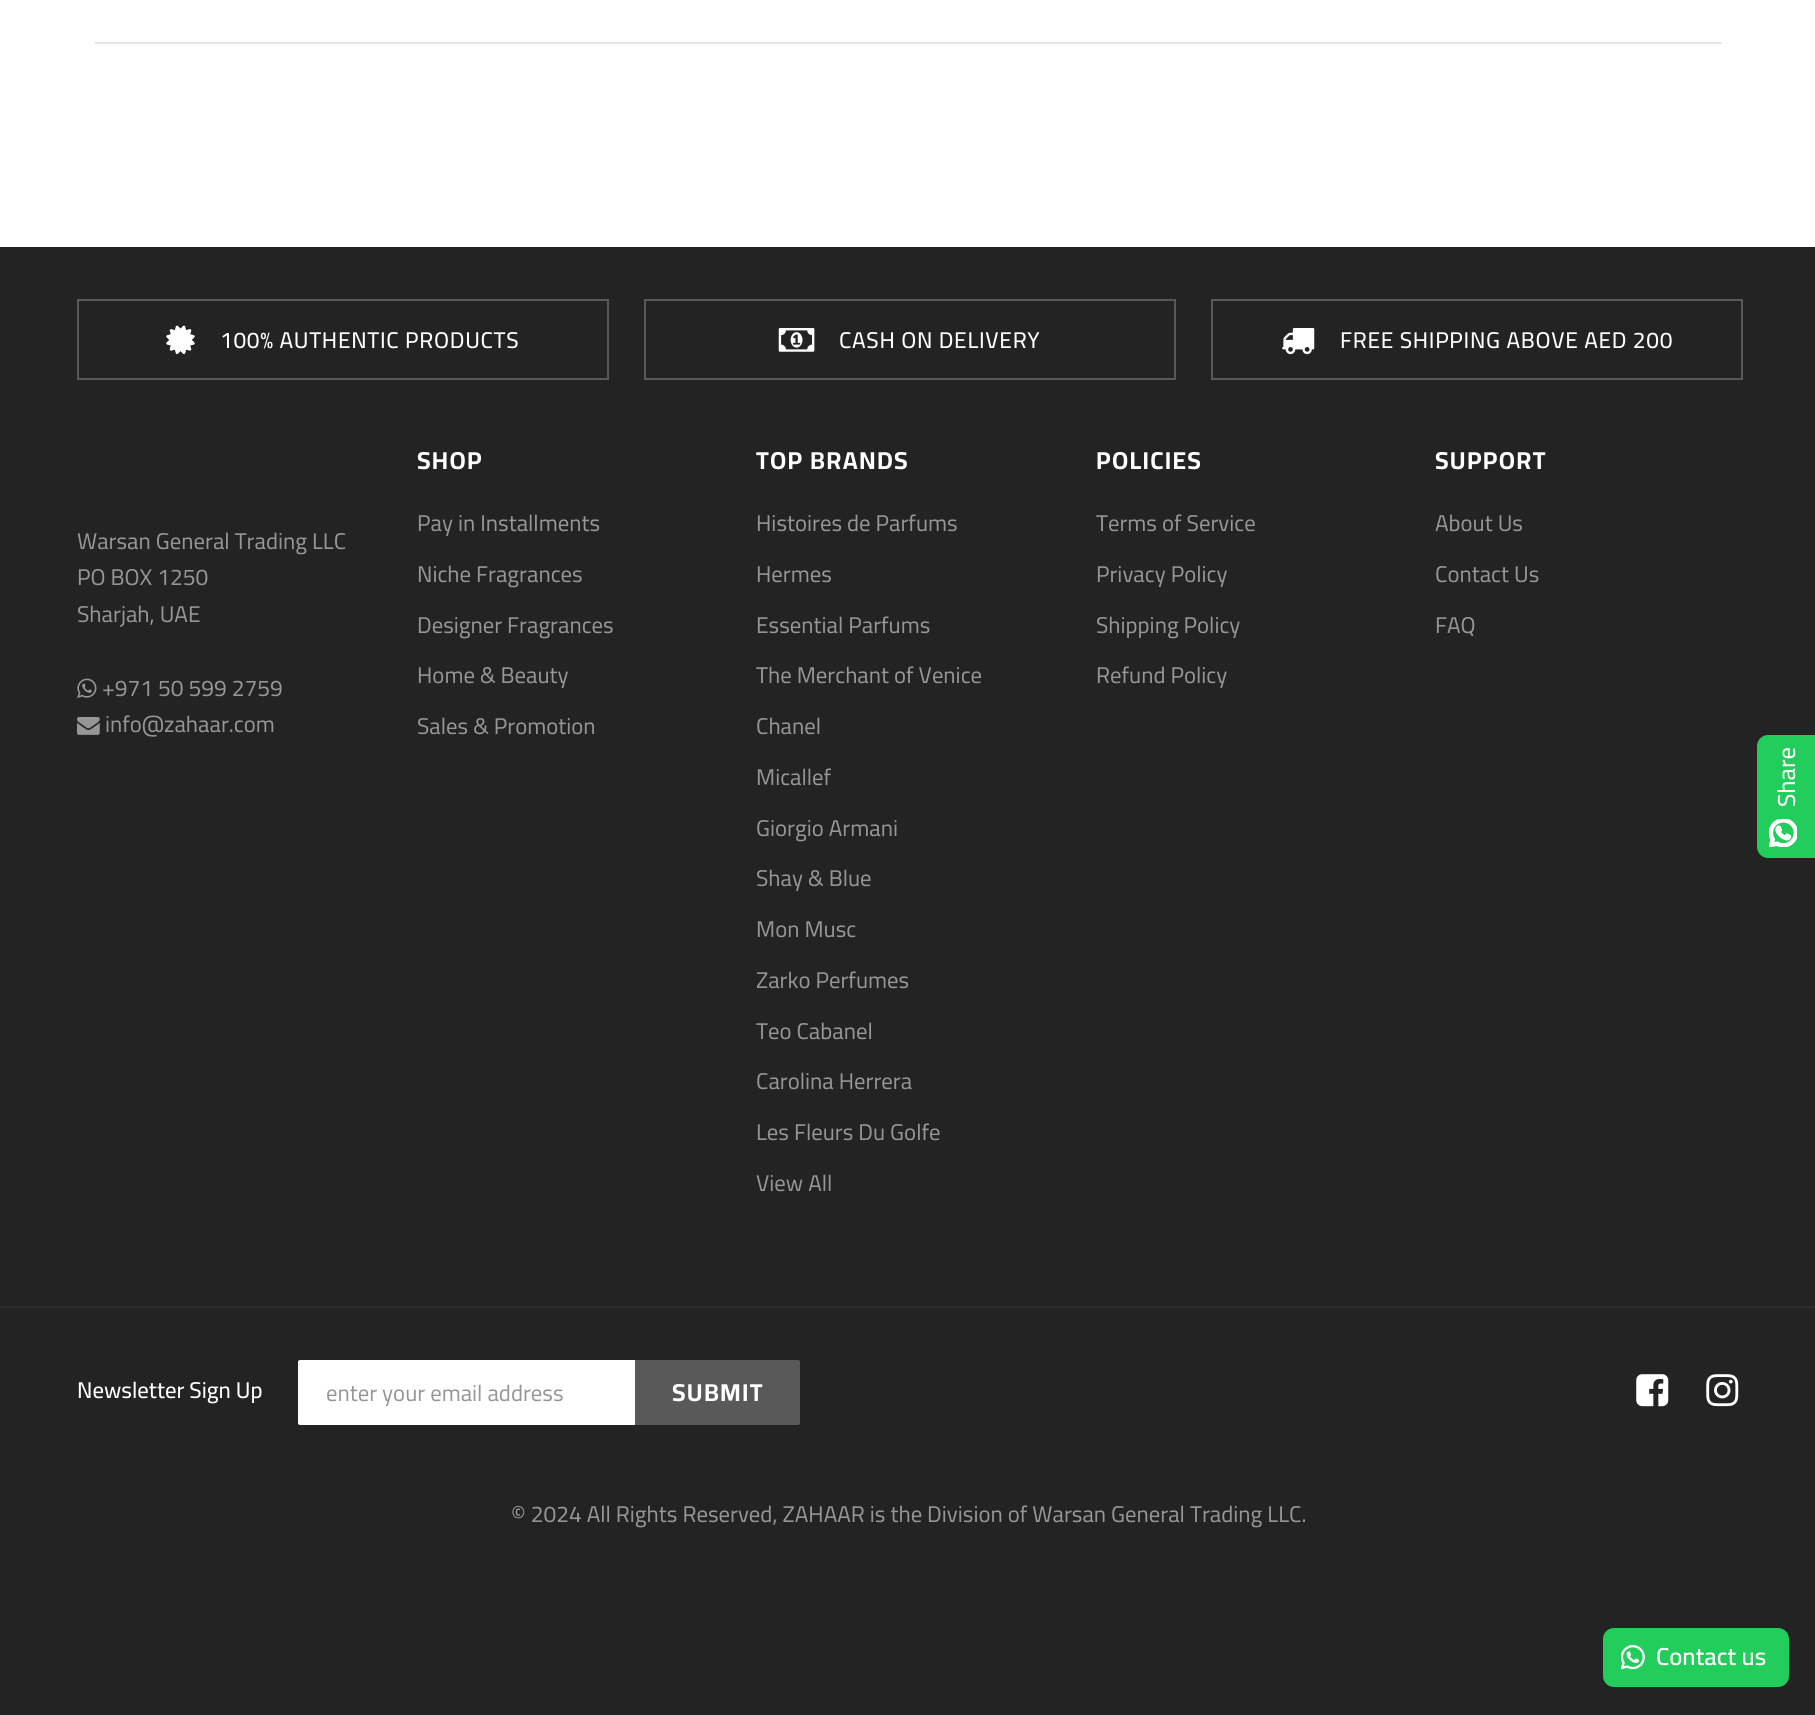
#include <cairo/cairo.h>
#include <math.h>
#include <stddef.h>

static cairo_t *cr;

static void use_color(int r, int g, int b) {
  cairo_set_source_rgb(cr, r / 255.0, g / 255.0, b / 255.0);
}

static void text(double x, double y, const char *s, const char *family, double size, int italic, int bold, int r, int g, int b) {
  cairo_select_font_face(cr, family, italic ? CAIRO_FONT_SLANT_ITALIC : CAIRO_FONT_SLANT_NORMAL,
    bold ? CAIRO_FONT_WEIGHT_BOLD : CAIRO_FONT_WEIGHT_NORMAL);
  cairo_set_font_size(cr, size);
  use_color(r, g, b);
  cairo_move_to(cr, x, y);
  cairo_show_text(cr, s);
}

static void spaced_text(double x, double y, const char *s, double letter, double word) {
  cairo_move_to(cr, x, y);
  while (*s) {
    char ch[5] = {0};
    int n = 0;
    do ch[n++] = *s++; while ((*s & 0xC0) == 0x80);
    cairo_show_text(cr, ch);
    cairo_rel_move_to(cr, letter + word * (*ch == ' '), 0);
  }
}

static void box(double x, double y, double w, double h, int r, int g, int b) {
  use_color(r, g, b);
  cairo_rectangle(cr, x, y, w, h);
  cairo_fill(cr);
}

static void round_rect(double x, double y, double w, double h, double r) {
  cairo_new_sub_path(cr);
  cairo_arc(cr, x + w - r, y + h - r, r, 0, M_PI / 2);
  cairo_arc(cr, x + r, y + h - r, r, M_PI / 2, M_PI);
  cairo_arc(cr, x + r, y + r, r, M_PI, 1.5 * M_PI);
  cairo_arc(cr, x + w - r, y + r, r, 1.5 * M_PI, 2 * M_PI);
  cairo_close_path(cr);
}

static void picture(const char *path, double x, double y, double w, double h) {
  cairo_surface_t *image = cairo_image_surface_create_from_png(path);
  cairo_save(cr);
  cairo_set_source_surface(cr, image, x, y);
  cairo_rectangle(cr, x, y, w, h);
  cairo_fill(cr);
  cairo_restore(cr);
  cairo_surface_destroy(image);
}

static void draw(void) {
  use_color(255, 255, 255);
  cairo_paint(cr);
  box(95, 42, 1627, 2, 230, 230, 230);
  box(0, 247, 1815, 1468, 35, 35, 35);
  cairo_rectangle(cr, 78, 300, 530, 79);
  use_color(89, 89, 89);
  cairo_stroke(cr);
  picture("img_01.png", 166, 325, 29, 30);
  cairo_rectangle(cr, 645, 300, 530, 79);
  cairo_stroke(cr);
  picture("img_02.png", 778, 328, 37, 24);
  cairo_rectangle(cr, 1212, 300, 530, 79);
  cairo_stroke(cr);
  picture("img_03.png", 1282, 328, 33, 27);
  picture("img_04.png", 77, 678, 20, 21);
  picture("img_05.png", 77, 717, 23, 18);
  box(0, 1306, 1815, 2, 46, 46, 46);
  use_color(255, 255, 255);
  cairo_new_path(cr);
  cairo_move_to(cr, 300, 1361);
  cairo_line_to(cr, 634, 1361);
  cairo_line_to(cr, 634, 1424);
  cairo_line_to(cr, 300, 1424);
  cairo_curve_to(cr, 299.5, 1424, 299, 1423.5, 299, 1423);
  cairo_line_to(cr, 299, 1362);
  cairo_curve_to(cr, 299, 1361.5, 299.5, 1361, 300, 1361);
  cairo_close_path(cr);
  cairo_fill_preserve(cr);
  cairo_stroke(cr);
  use_color(89, 89, 89);
  cairo_new_path(cr);
  cairo_move_to(cr, 636, 1361);
  cairo_line_to(cr, 798, 1361);
  cairo_curve_to(cr, 798.5, 1361, 799, 1361.5, 799, 1362);
  cairo_line_to(cr, 799, 1423);
  cairo_curve_to(cr, 799, 1423.5, 798.5, 1424, 798, 1424);
  cairo_line_to(cr, 636, 1424);
  cairo_close_path(cr);
  cairo_fill_preserve(cr);
  cairo_stroke(cr);
  picture("img_06.png", 1636, 1374, 33, 33);
  picture("img_07.png", 1706, 1374, 33, 33);
  use_color(34, 205, 91);
  cairo_new_path(cr);
  cairo_move_to(cr, 1768, 735);
  cairo_line_to(cr, 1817, 735);
  cairo_line_to(cr, 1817, 858);
  cairo_line_to(cr, 1768, 858);
  cairo_curve_to(cr, 1762, 858, 1757, 853, 1757, 847);
  cairo_line_to(cr, 1757, 746);
  cairo_curve_to(cr, 1757, 740, 1762, 735, 1768, 735);
  cairo_close_path(cr);
  cairo_fill(cr);
  picture("img_08.png", 1769, 819, 28, 28);
  round_rect(1603, 1628, 186, 59, 11);
  cairo_fill(cr);
  picture("img_09.png", 1621, 1645, 24, 25);
  cairo_select_font_face(cr, "Cairo Medium", CAIRO_FONT_SLANT_NORMAL, CAIRO_FONT_WEIGHT_NORMAL);
  cairo_set_font_size(cr, 22.75);
  use_color(255, 255, 255);
  spaced_text(220, 348, "100% AUTHENTIC PRODUCTS", 0.7, 0);
  spaced_text(839, 348, "CASH ON DELIVERY", 0.7, 0);
  spaced_text(1340, 348, "FREE SHIPPING ABOVE AED 200", 0.7, 0);
  text(77, 549, "Warsan General Trading LLC", "Cairo", 22.75, 0, 0, 150, 150, 150);
  text(77, 585, "PO BOX 1250", "Cairo", 22.75, 0, 0, 150, 150, 150);
  text(77, 622, "Sharjah, UAE", "Cairo", 22.75, 0, 0, 150, 150, 150);
  text(102, 696, "+971 50 599 2759", "Cairo", 22.75, 0, 0, 150, 150, 150);
  text(105, 732, "info@zahaar.com", "Cairo", 22.75, 0, 0, 150, 150, 150);
  cairo_select_font_face(cr, "Cairo", CAIRO_FONT_SLANT_NORMAL, CAIRO_FONT_WEIGHT_BOLD);
  cairo_set_font_size(cr, 24.5);
  use_color(255, 255, 255);
  spaced_text(417, 469, "SHOP", 1.25, 0);
  text(417, 531, "Pay in Installments", "Cairo", 22.75, 0, 0, 150, 150, 150);
  text(417, 582, "Niche Fragrances", "Cairo", 22.75, 0, 0, 150, 150, 150);
  text(417, 633, "Designer Fragrances", "Cairo", 22.75, 0, 0, 150, 150, 150);
  text(417, 683, "Home & Beauty", "Cairo", 22.75, 0, 0, 150, 150, 150);
  text(417, 734, "Sales & Promotion", "Cairo", 22.75, 0, 0, 150, 150, 150);
  cairo_select_font_face(cr, "Cairo", CAIRO_FONT_SLANT_NORMAL, CAIRO_FONT_WEIGHT_BOLD);
  cairo_set_font_size(cr, 24.5);
  use_color(255, 255, 255);
  spaced_text(756, 469, "TOP BRANDS", 1.25, 0);
  text(756, 531, "Histoires de Parfums", "Cairo", 22.75, 0, 0, 150, 150, 150);
  text(756, 582, "Hermes", "Cairo", 22.75, 0, 0, 150, 150, 150);
  text(756, 633, "Essential Parfums", "Cairo", 22.75, 0, 0, 150, 150, 150);
  text(756, 683, "The Merchant of Venice", "Cairo", 22.75, 0, 0, 150, 150, 150);
  text(756, 734, "Chanel", "Cairo", 22.75, 0, 0, 150, 150, 150);
  text(756, 785, "Micallef", "Cairo", 22.75, 0, 0, 150, 150, 150);
  text(756, 836, "Giorgio Armani", "Cairo", 22.75, 0, 0, 150, 150, 150);
  text(756, 886, "Shay & Blue", "Cairo", 22.75, 0, 0, 150, 150, 150);
  text(756, 937, "Mon Musc", "Cairo", 22.75, 0, 0, 150, 150, 150);
  text(756, 988, "Zarko Perfumes", "Cairo", 22.75, 0, 0, 150, 150, 150);
  text(756, 1039, "Teo Cabanel", "Cairo", 22.75, 0, 0, 150, 150, 150);
  text(756, 1089, "Carolina Herrera", "Cairo", 22.75, 0, 0, 150, 150, 150);
  text(756, 1140, "Les Fleurs Du Golfe", "Cairo", 22.75, 0, 0, 150, 150, 150);
  text(756, 1191, "View All", "Cairo", 22.75, 0, 0, 150, 150, 150);
  cairo_select_font_face(cr, "Cairo", CAIRO_FONT_SLANT_NORMAL, CAIRO_FONT_WEIGHT_BOLD);
  cairo_set_font_size(cr, 24.5);
  use_color(255, 255, 255);
  spaced_text(1096, 469, "POLICIES", 1.25, 0);
  text(1096, 531, "Terms of Service", "Cairo", 22.75, 0, 0, 150, 150, 150);
  text(1096, 582, "Privacy Policy", "Cairo", 22.75, 0, 0, 150, 150, 150);
  text(1096, 633, "Shipping Policy", "Cairo", 22.75, 0, 0, 150, 150, 150);
  text(1096, 683, "Refund Policy", "Cairo", 22.75, 0, 0, 150, 150, 150);
  cairo_select_font_face(cr, "Cairo", CAIRO_FONT_SLANT_NORMAL, CAIRO_FONT_WEIGHT_BOLD);
  cairo_set_font_size(cr, 24.5);
  use_color(255, 255, 255);
  spaced_text(1435, 469, "SUPPORT", 1.25, 0);
  text(1435, 531, "About Us", "Cairo", 22.75, 0, 0, 150, 150, 150);
  text(1435, 582, "Contact Us", "Cairo", 22.75, 0, 0, 150, 150, 150);
  text(1435, 633, "FAQ", "Cairo", 22.75, 0, 0, 150, 150, 150);
  text(77, 1398, "Newsletter Sign Up", "Cairo Medium", 22.75, 0, 0, 255, 255, 255);
  text(326, 1401, "enter your email address", "Cairo", 22.75, 0, 0, 150, 150, 150);
  cairo_select_font_face(cr, "Cairo", CAIRO_FONT_SLANT_NORMAL, CAIRO_FONT_WEIGHT_BOLD);
  cairo_set_font_size(cr, 24.5);
  use_color(255, 255, 255);
  spaced_text(672, 1401, "SUBMIT", 1.25, 0);
  text(511, 1522, "© 2024 All Rights Reserved, ZAHAAR is the Division of Warsan General Trading LLC.", "Cairo", 22.75, 0, 0, 150, 150, 150);
  cairo_save(cr);
  cairo_translate(cr, 1795, 807);
  cairo_rotate(cr, -90 * M_PI / 180);
  text(0, 0, "Share", "Cairo Medium", 24.5, 0, 0, 255, 255, 255);
  cairo_restore(cr);
  text(1656, 1665, "Contact us", "Cairo SemiBold", 24.5, 0, 0, 255, 255, 255);
}

int main(void) {
  cairo_surface_t *surface = cairo_image_surface_create(CAIRO_FORMAT_RGB24, 1815, 1715);
  cr = cairo_create(surface);
  cairo_font_options_t *options = cairo_font_options_create();
  cairo_font_options_set_hint_metrics(options, CAIRO_HINT_METRICS_OFF);
  cairo_font_options_set_hint_style(options, CAIRO_HINT_STYLE_NONE);
  cairo_set_font_options(cr, options);
  cairo_set_miter_limit(cr, 4);
  draw();
  cairo_surface_write_to_png(surface, "out.png");
  cairo_font_options_destroy(options);
  cairo_destroy(cr);
  cairo_surface_destroy(surface);
  return 0;
}
